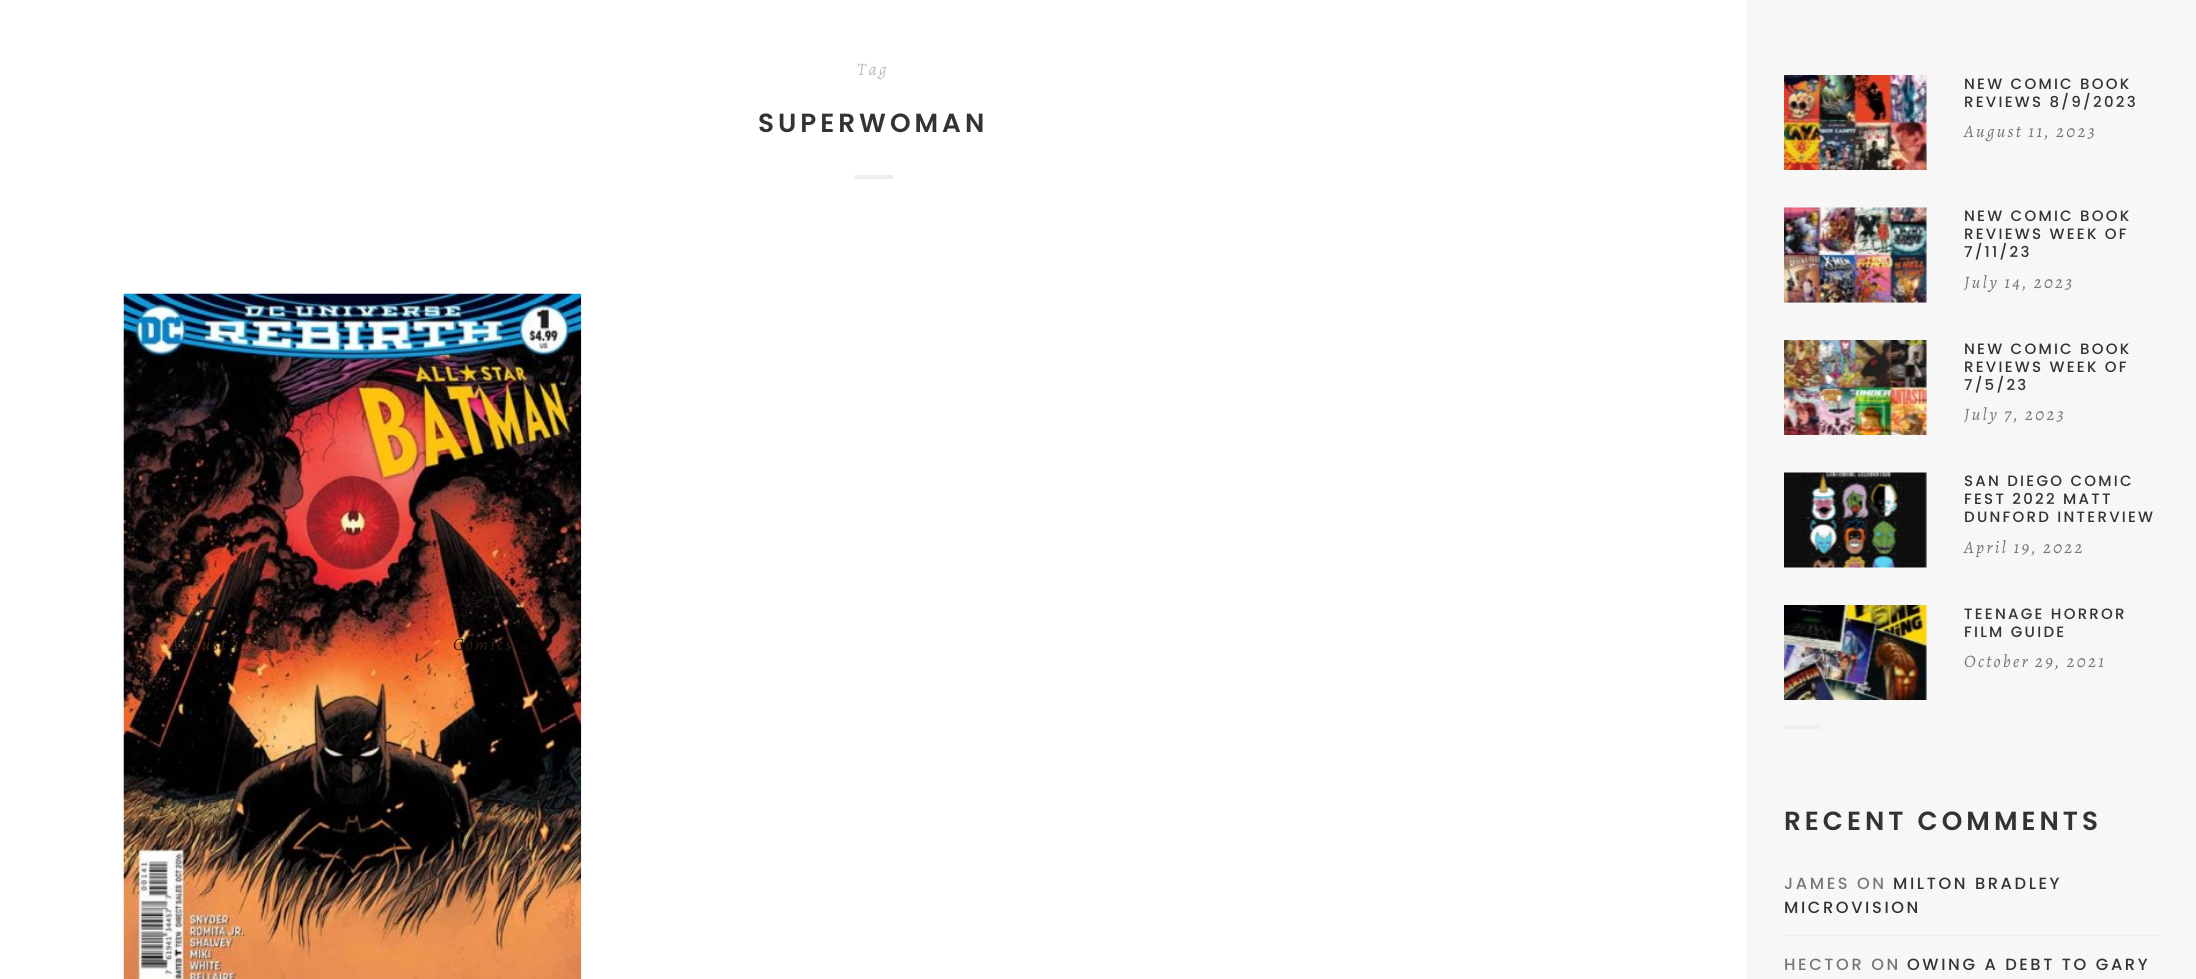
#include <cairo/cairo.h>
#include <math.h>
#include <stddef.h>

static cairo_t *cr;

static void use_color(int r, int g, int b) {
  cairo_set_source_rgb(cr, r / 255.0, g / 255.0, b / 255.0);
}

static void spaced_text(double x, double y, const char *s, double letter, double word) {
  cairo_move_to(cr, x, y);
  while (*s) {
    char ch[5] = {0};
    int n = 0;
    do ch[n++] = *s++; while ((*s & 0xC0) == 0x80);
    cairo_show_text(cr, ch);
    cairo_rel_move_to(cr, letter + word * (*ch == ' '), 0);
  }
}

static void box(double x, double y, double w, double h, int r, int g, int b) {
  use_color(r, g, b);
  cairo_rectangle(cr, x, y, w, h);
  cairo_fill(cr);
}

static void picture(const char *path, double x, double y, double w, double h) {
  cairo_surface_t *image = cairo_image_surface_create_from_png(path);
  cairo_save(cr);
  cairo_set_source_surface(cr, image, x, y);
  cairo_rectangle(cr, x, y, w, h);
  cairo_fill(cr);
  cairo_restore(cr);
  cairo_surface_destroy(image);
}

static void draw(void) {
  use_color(255, 255, 255);
  cairo_paint(cr);
  box(855, 175, 38, 4, 238, 238, 238);
  picture("img_01.png", 123, 293, 459, 686);
  box(1746, 0, 450, 979, 247, 247, 247);
  picture("img_02.png", 1784, 75, 143, 95);
  picture("img_03.png", 1784, 207, 143, 96);
  picture("img_04.png", 1784, 340, 143, 95);
  picture("img_05.png", 1784, 472, 143, 96);
  picture("img_06.png", 1784, 605, 143, 95);
  box(1784, 725, 37, 4, 238, 238, 238);
  box(1784, 935, 375, 1, 238, 238, 238);
  cairo_select_font_face(cr, "Alegreya", CAIRO_FONT_SLANT_ITALIC, CAIRO_FONT_WEIGHT_NORMAL);
  cairo_set_font_size(cr, 17.5);
  use_color(186, 186, 186);
  spaced_text(857, 75, "Tag", 2.25, 0);
  cairo_select_font_face(cr, "Poppins SemiBold", CAIRO_FONT_SLANT_NORMAL, CAIRO_FONT_WEIGHT_NORMAL);
  cairo_set_font_size(cr, 26.25);
  use_color(51, 51, 51);
  spaced_text(758, 132, "SUPERWOMAN", 4, 0);
  cairo_select_font_face(cr, "Alegreya", CAIRO_FONT_SLANT_ITALIC, CAIRO_FONT_WEIGHT_NORMAL);
  cairo_set_font_size(cr, 17.5);
  use_color(73, 36, 26);
  spaced_text(169, 650, "August 12, 2016", 2.25, 0);
  use_color(50, 28, 15);
  spaced_text(453, 650, "Comics", 2.25, 0);
  cairo_select_font_face(cr, "Poppins Medium", CAIRO_FONT_SLANT_NORMAL, CAIRO_FONT_WEIGHT_NORMAL);
  cairo_set_font_size(cr, 15);
  use_color(51, 51, 51);
  spaced_text(1964, 89, "NEW COMIC BOOK", 2.25, 0);
  spaced_text(1964, 107, "REVIEWS 8/9/2023", 2.25, 0);
  cairo_select_font_face(cr, "Alegreya", CAIRO_FONT_SLANT_ITALIC, CAIRO_FONT_WEIGHT_NORMAL);
  cairo_set_font_size(cr, 17.5);
  use_color(119, 119, 119);
  spaced_text(1964, 137, "August 11, 2023", 2.25, 0);
  cairo_select_font_face(cr, "Poppins Medium", CAIRO_FONT_SLANT_NORMAL, CAIRO_FONT_WEIGHT_NORMAL);
  cairo_set_font_size(cr, 15);
  use_color(51, 51, 51);
  spaced_text(1964, 221, "NEW COMIC BOOK", 2.25, 0);
  spaced_text(1964, 239, "REVIEWS WEEK OF", 2.25, 0);
  spaced_text(1964, 257, "7/11/23", 2.25, 0);
  cairo_select_font_face(cr, "Alegreya", CAIRO_FONT_SLANT_ITALIC, CAIRO_FONT_WEIGHT_NORMAL);
  cairo_set_font_size(cr, 17.5);
  use_color(119, 119, 119);
  spaced_text(1964, 288, "July 14, 2023", 2.25, 0);
  cairo_select_font_face(cr, "Poppins Medium", CAIRO_FONT_SLANT_NORMAL, CAIRO_FONT_WEIGHT_NORMAL);
  cairo_set_font_size(cr, 15);
  use_color(51, 51, 51);
  spaced_text(1964, 354, "NEW COMIC BOOK", 2.25, 0);
  spaced_text(1964, 372, "REVIEWS WEEK OF", 2.25, 0);
  spaced_text(1964, 390, "7/5/23", 2.25, 0);
  cairo_select_font_face(cr, "Alegreya", CAIRO_FONT_SLANT_ITALIC, CAIRO_FONT_WEIGHT_NORMAL);
  cairo_set_font_size(cr, 17.5);
  use_color(119, 119, 119);
  spaced_text(1964, 420, "July 7, 2023", 2.25, 0);
  cairo_select_font_face(cr, "Poppins Medium", CAIRO_FONT_SLANT_NORMAL, CAIRO_FONT_WEIGHT_NORMAL);
  cairo_set_font_size(cr, 15);
  use_color(51, 51, 51);
  spaced_text(1964, 486, "SAN DIEGO COMIC", 2.25, 0);
  spaced_text(1964, 504, "FEST 2022 MATT", 2.25, 0);
  spaced_text(1964, 522, "DUNFORD INTERVIEW", 2.25, 0);
  cairo_select_font_face(cr, "Alegreya", CAIRO_FONT_SLANT_ITALIC, CAIRO_FONT_WEIGHT_NORMAL);
  cairo_set_font_size(cr, 17.5);
  use_color(119, 119, 119);
  spaced_text(1964, 553, "April 19, 2022", 2.25, 0);
  cairo_select_font_face(cr, "Poppins Medium", CAIRO_FONT_SLANT_NORMAL, CAIRO_FONT_WEIGHT_NORMAL);
  cairo_set_font_size(cr, 15);
  use_color(51, 51, 51);
  spaced_text(1964, 619, "TEENAGE HORROR", 2.25, 0);
  spaced_text(1964, 637, "FILM GUIDE", 2.25, 0);
  cairo_select_font_face(cr, "Alegreya", CAIRO_FONT_SLANT_ITALIC, CAIRO_FONT_WEIGHT_NORMAL);
  cairo_set_font_size(cr, 17.5);
  use_color(119, 119, 119);
  spaced_text(1964, 667, "October 29, 2021", 2.25, 0);
  cairo_select_font_face(cr, "Poppins SemiBold", CAIRO_FONT_SLANT_NORMAL, CAIRO_FONT_WEIGHT_NORMAL);
  cairo_set_font_size(cr, 26.25);
  use_color(51, 51, 51);
  spaced_text(1784, 830, "RECENT COMMENTS", 4, 0);
  cairo_select_font_face(cr, "Poppins Medium", CAIRO_FONT_SLANT_NORMAL, CAIRO_FONT_WEIGHT_NORMAL);
  cairo_set_font_size(cr, 16.25);
  use_color(119, 119, 119);
  spaced_text(1784, 889, "JAMES ON", 2.6, 0);
  use_color(51, 51, 51);
  spaced_text(1893, 889, "MILTON BRADLEY", 2.6, 0);
  spaced_text(1784, 913, "MICROVISION", 2.6, 0);
  use_color(119, 119, 119);
  spaced_text(1784, 970, "HECTOR ON", 2.6, 0);
  use_color(51, 51, 51);
  spaced_text(1907, 970, "OWING A DEBT TO GARY", 2.6, 0);
}

int main(void) {
  cairo_surface_t *surface = cairo_image_surface_create(CAIRO_FORMAT_RGB24, 2196, 979);
  cr = cairo_create(surface);
  cairo_font_options_t *options = cairo_font_options_create();
  cairo_font_options_set_hint_metrics(options, CAIRO_HINT_METRICS_OFF);
  cairo_font_options_set_hint_style(options, CAIRO_HINT_STYLE_NONE);
  cairo_set_font_options(cr, options);
  cairo_set_miter_limit(cr, 4);
  draw();
  cairo_surface_write_to_png(surface, "out.png");
  cairo_font_options_destroy(options);
  cairo_destroy(cr);
  cairo_surface_destroy(surface);
  return 0;
}
